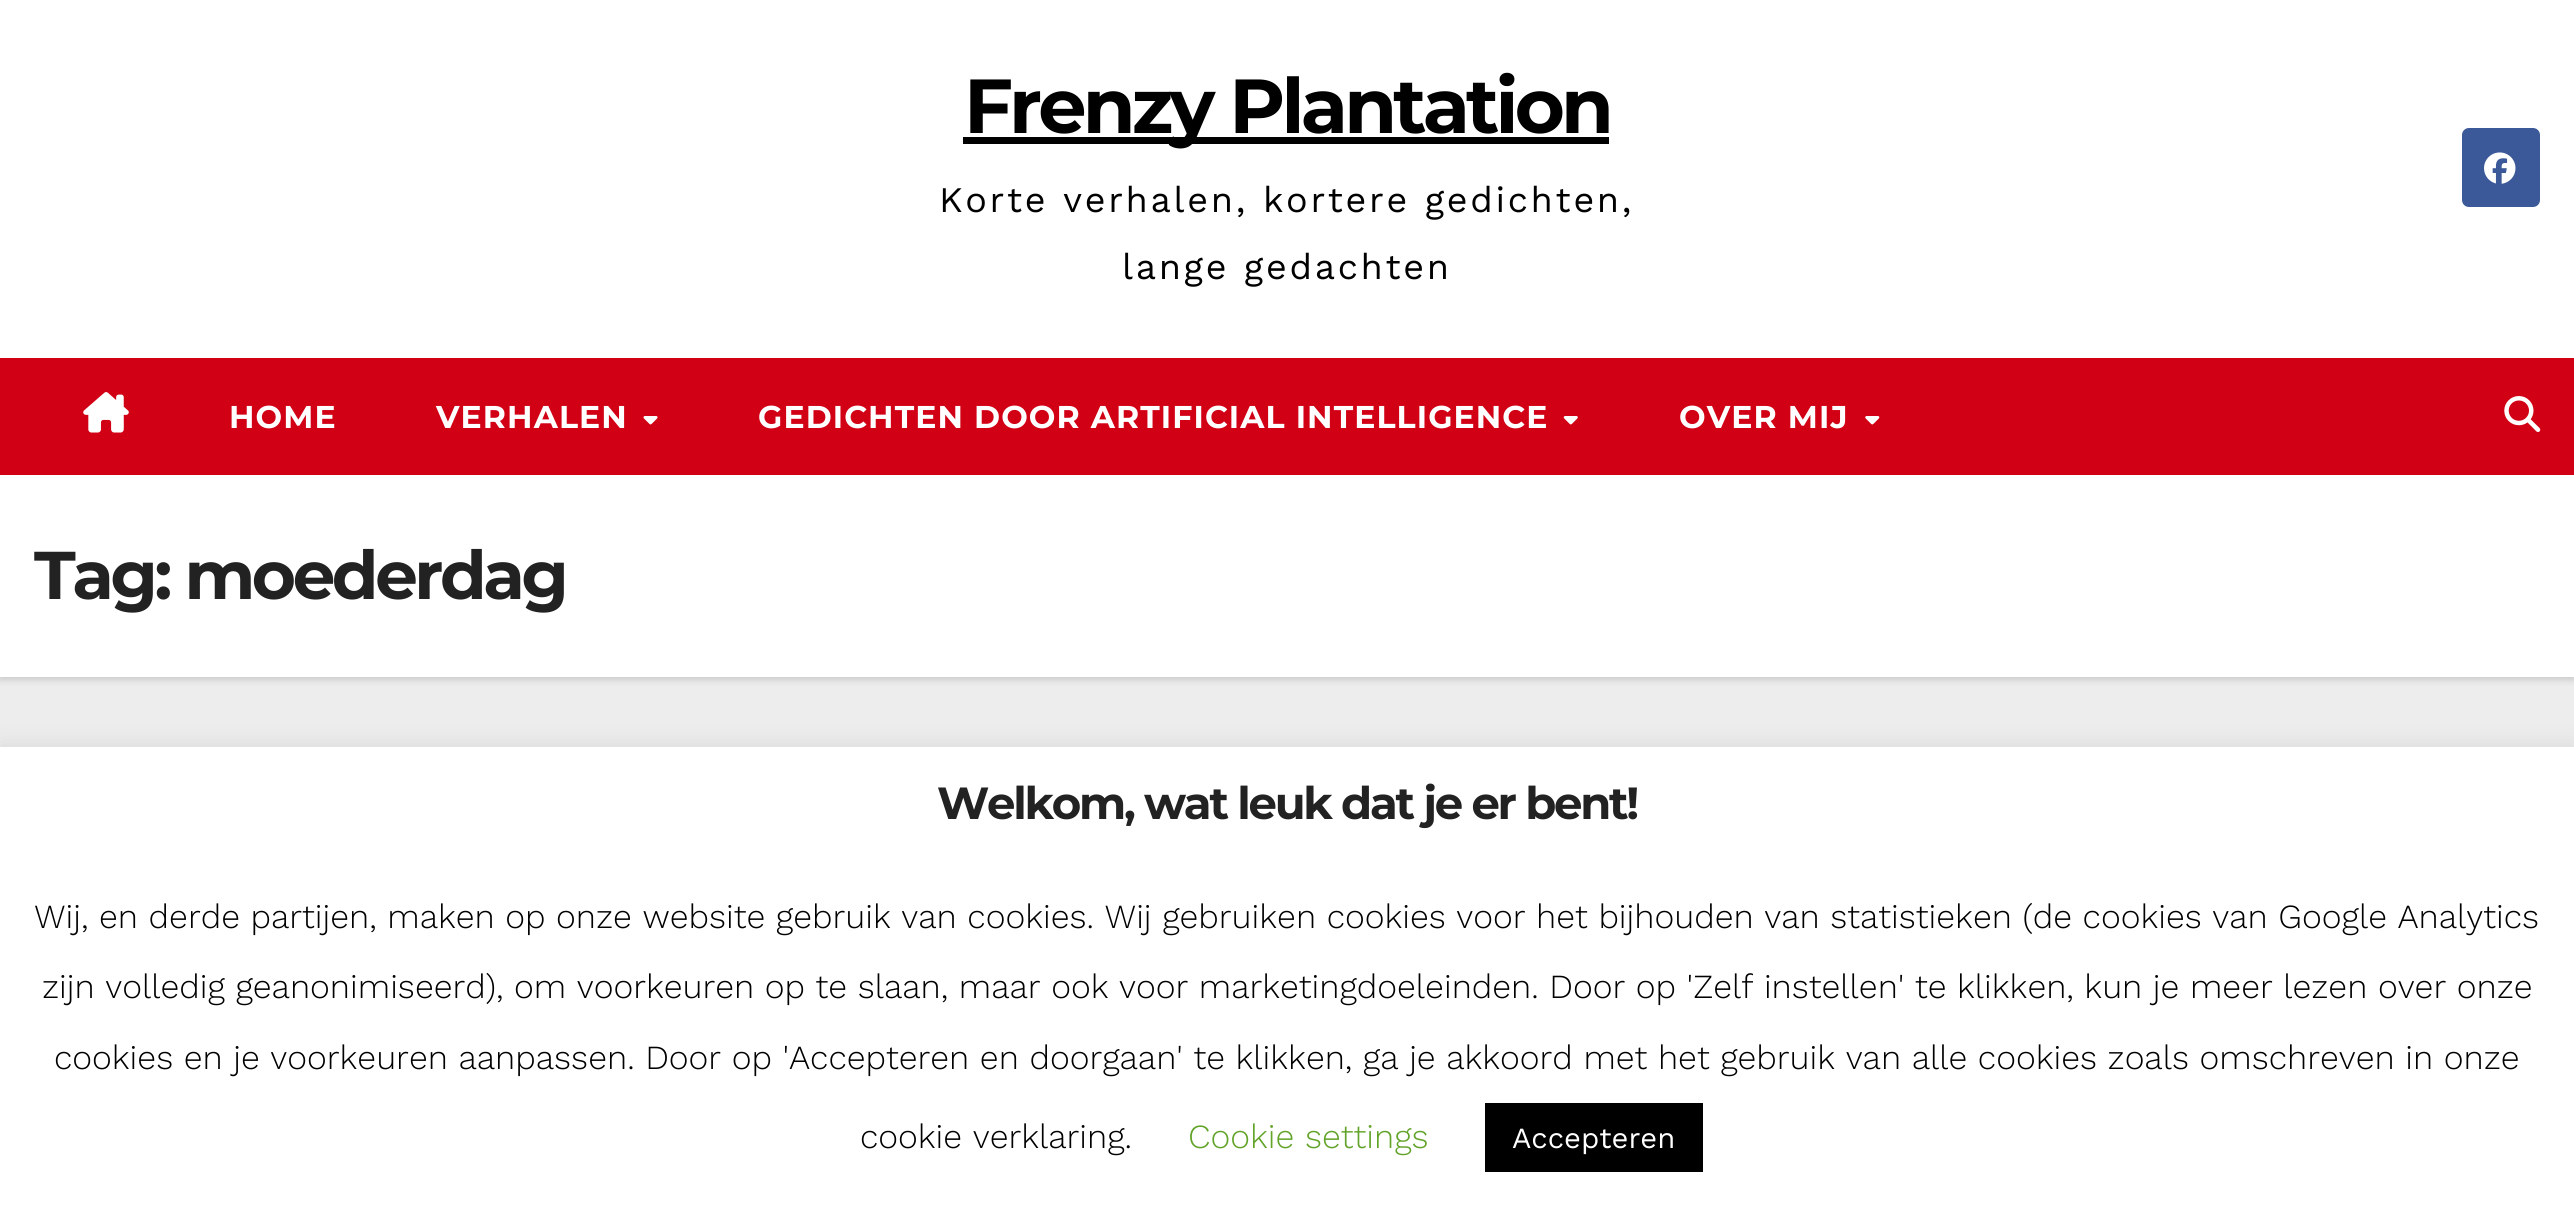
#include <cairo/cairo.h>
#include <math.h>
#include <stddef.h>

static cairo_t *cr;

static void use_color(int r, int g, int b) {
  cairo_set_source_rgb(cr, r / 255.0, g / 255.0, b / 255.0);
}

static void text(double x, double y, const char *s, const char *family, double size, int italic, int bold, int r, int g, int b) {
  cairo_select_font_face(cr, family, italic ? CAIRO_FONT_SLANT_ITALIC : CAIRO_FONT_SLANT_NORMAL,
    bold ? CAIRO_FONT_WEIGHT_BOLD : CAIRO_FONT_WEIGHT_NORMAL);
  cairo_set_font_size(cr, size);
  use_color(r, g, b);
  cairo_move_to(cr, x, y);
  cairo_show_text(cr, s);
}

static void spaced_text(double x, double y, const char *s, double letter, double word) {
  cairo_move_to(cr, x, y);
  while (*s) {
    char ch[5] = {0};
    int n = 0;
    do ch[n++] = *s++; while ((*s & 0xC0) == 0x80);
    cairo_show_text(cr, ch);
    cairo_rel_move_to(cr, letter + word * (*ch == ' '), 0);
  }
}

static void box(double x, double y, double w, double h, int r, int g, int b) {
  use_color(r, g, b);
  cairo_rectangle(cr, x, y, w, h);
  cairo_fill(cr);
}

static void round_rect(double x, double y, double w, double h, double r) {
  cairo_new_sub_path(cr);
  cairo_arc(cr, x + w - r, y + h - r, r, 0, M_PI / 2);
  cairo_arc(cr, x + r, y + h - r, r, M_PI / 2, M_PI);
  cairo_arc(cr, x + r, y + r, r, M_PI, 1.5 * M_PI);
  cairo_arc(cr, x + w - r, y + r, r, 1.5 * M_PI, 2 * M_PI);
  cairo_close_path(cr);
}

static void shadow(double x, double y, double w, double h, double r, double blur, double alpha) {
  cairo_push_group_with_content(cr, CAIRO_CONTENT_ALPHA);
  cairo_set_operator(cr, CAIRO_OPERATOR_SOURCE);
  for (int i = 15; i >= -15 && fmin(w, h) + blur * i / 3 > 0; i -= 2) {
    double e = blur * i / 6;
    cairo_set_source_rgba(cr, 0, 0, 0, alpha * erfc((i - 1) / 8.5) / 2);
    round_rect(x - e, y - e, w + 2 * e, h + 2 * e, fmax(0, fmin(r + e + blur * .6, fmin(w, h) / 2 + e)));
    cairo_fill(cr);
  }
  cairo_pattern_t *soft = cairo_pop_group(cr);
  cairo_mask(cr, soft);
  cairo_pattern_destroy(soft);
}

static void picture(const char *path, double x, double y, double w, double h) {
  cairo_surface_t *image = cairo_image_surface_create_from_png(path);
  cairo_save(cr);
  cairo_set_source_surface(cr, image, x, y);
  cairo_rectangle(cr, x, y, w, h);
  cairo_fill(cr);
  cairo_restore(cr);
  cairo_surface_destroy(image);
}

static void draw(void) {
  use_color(237, 237, 237);
  cairo_paint(cr);
  box(0, 0, 2574, 358, 255, 255, 255);
  box(963, 137, 646, 7, 0, 0, 0);
  use_color(59, 89, 152);
  round_rect(2462, 128, 78, 79, 7);
  cairo_fill(cr);
  picture("img_01.png", 2484, 152, 32, 32);
  use_color(0, 0, 0);
  shadow(0, 477, 2574, 203, 0, 3.5, 0.15);
  box(0, 358, 2574, 117, 209, 0, 20);
  picture("img_02.png", 83, 392, 46, 41);
  picture("img_03.png", 643, 416, 15, 9);
  picture("img_04.png", 1563, 416, 15, 9);
  picture("img_05.png", 1865, 416, 15, 9);
  picture("img_06.png", 2504, 396, 37, 36);
  box(0, 475, 2574, 202, 255, 255, 255);
  use_color(172, 171, 171);
  shadow(0, 745, 2574, 463, 0, 11, 0.3);
  box(0, 747, 2574, 462, 255, 255, 255);
  box(1485, 1103, 218, 69, 0, 0, 0);
  cairo_select_font_face(cr, "Montserrat", CAIRO_FONT_SLANT_NORMAL, CAIRO_FONT_WEIGHT_BOLD);
  cairo_set_font_size(cr, 76.5);
  spaced_text(964, 133, "Frenzy Plantation", -3.8, 0);
  cairo_select_font_face(cr, "Work Sans", CAIRO_FONT_SLANT_NORMAL, CAIRO_FONT_WEIGHT_NORMAL);
  cairo_set_font_size(cr, 36);
  spaced_text(939, 212, "Korte verhalen, kortere gedichten,", 2.7, 0);
  spaced_text(1122, 279, "lange gedachten", 2.7, 0);
  cairo_select_font_face(cr, "Montserrat", CAIRO_FONT_SLANT_NORMAL, CAIRO_FONT_WEIGHT_BOLD);
  cairo_set_font_size(cr, 31.5);
  use_color(255, 255, 255);
  spaced_text(229, 428, "HOME", 1.1, 0);
  spaced_text(436, 428, "VERHALEN", 1.1, 0);
  spaced_text(758, 428, "GEDICHTEN DOOR ARTIFICIAL INTELLIGENCE", 1.1, 0);
  spaced_text(1679, 428, "OVER MIJ", 1.1, 0);
  cairo_set_font_size(cr, 67.5);
  use_color(34, 34, 34);
  spaced_text(34, 599, "Tag: moederdag", -3.4, 0);
  cairo_set_font_size(cr, 45);
  spaced_text(937, 819, "Welkom, wat leuk dat je er bent!", -2.25, 0);
  text(34, 928, "Wij, en derde partijen, maken op onze website gebruik van cookies. Wij gebruiken cookies voor het bijhouden van statistieken (de cookies van Google Analytics", "Work Sans Light", 33.75, 0, 0, 0, 0, 0);
  text(42, 998, "zijn volledig geanonimiseerd), om voorkeuren op te slaan, maar ook voor marketingdoeleinden. Door op 'Zelf instellen' te klikken, kun je meer lezen over onze", "Work Sans Light", 33.75, 0, 0, 0, 0, 0);
  text(54, 1069, "cookies en je voorkeuren aanpassen. Door op 'Accepteren en doorgaan' te klikken, ga je akkoord met het gebruik van alle cookies zoals omschreven in onze", "Work Sans Light", 33.75, 0, 0, 0, 0, 0);
  text(860, 1148, "cookie verklaring.", "Work Sans Light", 33.75, 0, 0, 0, 0, 0);
  text(1188, 1148, "Cookie settings", "Work Sans Light", 33.75, 0, 0, 98, 163, 41);
  text(1512, 1148, "Accepteren", "Work Sans", 29.25, 0, 0, 255, 255, 255);
}

int main(void) {
  cairo_surface_t *surface = cairo_image_surface_create(CAIRO_FORMAT_RGB24, 2574, 1209);
  cr = cairo_create(surface);
  cairo_font_options_t *options = cairo_font_options_create();
  cairo_font_options_set_hint_metrics(options, CAIRO_HINT_METRICS_OFF);
  cairo_font_options_set_hint_style(options, CAIRO_HINT_STYLE_NONE);
  cairo_set_font_options(cr, options);
  cairo_set_miter_limit(cr, 4);
  draw();
  cairo_surface_write_to_png(surface, "out.png");
  cairo_font_options_destroy(options);
  cairo_destroy(cr);
  cairo_surface_destroy(surface);
  return 0;
}
